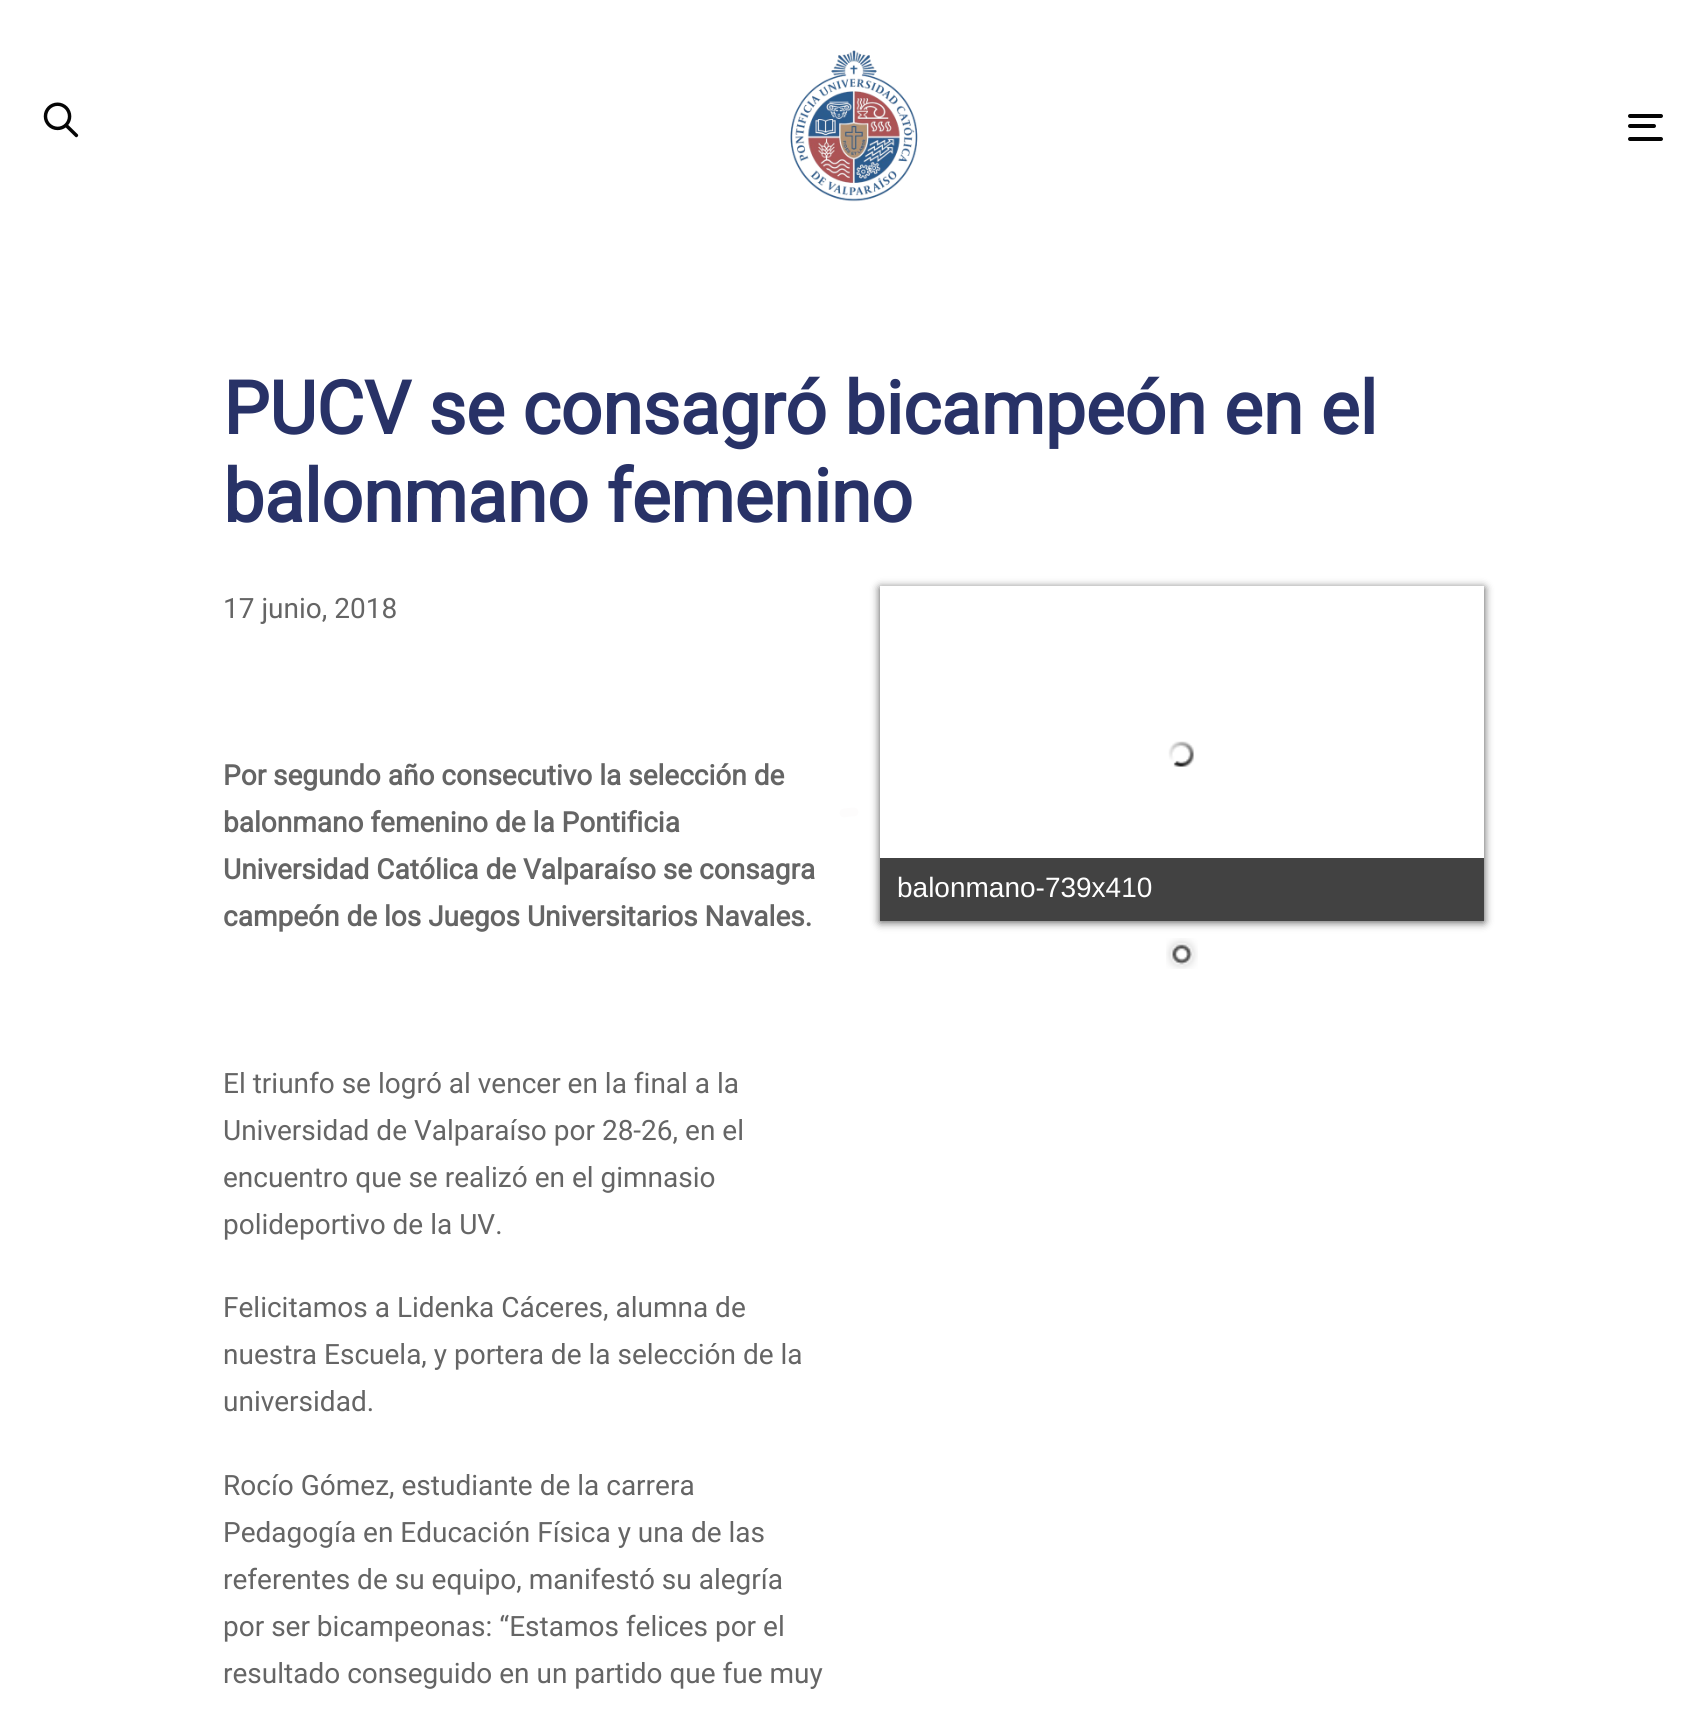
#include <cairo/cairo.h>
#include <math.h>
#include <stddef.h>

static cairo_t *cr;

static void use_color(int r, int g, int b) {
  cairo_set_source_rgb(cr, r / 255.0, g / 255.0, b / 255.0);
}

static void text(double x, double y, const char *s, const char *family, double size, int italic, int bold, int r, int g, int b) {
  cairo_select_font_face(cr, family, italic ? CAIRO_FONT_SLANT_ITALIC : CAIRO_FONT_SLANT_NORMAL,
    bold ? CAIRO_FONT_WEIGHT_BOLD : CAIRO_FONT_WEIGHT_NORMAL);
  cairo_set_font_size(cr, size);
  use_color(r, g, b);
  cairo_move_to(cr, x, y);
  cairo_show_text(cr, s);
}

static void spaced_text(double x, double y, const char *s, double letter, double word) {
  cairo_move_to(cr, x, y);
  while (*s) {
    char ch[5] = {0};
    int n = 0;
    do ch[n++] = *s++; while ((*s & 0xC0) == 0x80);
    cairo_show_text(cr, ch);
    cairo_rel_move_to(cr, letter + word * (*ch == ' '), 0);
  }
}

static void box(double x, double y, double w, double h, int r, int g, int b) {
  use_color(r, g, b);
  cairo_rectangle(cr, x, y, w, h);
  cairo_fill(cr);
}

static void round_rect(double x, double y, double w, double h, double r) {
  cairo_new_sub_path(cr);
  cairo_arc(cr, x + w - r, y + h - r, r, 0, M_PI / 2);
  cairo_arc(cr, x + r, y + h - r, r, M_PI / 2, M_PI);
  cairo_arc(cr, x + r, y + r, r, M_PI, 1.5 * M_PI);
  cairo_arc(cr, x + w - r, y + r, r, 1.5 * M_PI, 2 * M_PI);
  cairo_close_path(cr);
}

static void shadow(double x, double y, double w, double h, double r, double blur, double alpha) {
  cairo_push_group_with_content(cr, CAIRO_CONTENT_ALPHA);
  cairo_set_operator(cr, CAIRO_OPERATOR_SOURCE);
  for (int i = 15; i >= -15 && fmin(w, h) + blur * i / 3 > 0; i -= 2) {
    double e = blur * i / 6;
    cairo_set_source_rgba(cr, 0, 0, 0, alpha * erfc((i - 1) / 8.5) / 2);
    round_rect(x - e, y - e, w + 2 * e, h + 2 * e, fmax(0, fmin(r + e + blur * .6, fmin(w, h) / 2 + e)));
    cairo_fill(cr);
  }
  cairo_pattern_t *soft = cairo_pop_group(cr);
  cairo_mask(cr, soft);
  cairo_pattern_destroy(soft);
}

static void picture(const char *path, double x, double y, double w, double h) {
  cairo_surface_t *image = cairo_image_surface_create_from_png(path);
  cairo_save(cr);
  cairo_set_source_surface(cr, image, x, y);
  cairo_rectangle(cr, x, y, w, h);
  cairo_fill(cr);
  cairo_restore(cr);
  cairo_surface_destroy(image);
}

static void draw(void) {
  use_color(255, 255, 255);
  cairo_paint(cr);
  picture("img_01.png", 43, 102, 36, 36);
  picture("img_02.png", 790, 50, 128, 152);
  use_color(5, 5, 5);
  round_rect(1628, 114, 35, 4, 2);
  cairo_fill(cr);
  round_rect(1628, 124, 28, 4, 2);
  cairo_fill(cr);
  round_rect(1628, 137, 35, 4, 2);
  cairo_fill(cr);
  use_color(78, 78, 78);
  shadow(880, 588, 604, 334, 0, 4.5, 1);
  box(880, 586, 604, 272, 255, 255, 255);
  picture("img_03.png", 1168, 741, 26, 26);
  box(880, 858, 604, 63, 66, 66, 66);
  picture("img_04.png", 1166, 938, 32, 31);
  cairo_new_path(cr);
  cairo_move_to(cr, 844, 813);
  cairo_curve_to(cr, 847, 812.5, 850.5, 812, 854, 812);
  use_color(253, 252, 252);
  cairo_set_line_width(cr, 8.8);
  cairo_set_line_cap(cr, CAIRO_LINE_CAP_ROUND);
  cairo_stroke(cr);
  cairo_select_font_face(cr, "Roboto", CAIRO_FONT_SLANT_NORMAL, CAIRO_FONT_WEIGHT_BOLD);
  cairo_set_font_size(cr, 73.5);
  use_color(40, 50, 103);
  spaced_text(223, 434, "PUCV se consagró bicampeón en el", -0.35, 0);
  spaced_text(223, 522, "balonmano femenino", -0.35, 0);
  text(223, 618, "17 junio, 2018", "Roboto", 28, 0, 0, 101, 101, 101);
  text(223, 785, "Por segundo año consecutivo la selección de", "Roboto", 28, 0, 1, 101, 101, 101);
  text(223, 832, "balonmano femenino de la Pontificia", "Roboto", 28, 0, 1, 101, 101, 101);
  text(223, 879, "Universidad Católica de Valparaíso se consagra", "Roboto", 28, 0, 1, 101, 101, 101);
  text(223, 926, "campeón de los Juegos Universitarios Navales.", "Roboto", 28, 0, 1, 101, 101, 101);
  text(223, 1093, "El triunfo se logró al vencer en la final a la", "Roboto", 28, 0, 0, 101, 101, 101);
  text(223, 1140, "Universidad de Valparaíso por 28-26, en el", "Roboto", 28, 0, 0, 101, 101, 101);
  text(223, 1187, "encuentro que se realizó en el gimnasio", "Roboto", 28, 0, 0, 101, 101, 101);
  text(223, 1234, "polideportivo de la UV.", "Roboto", 28, 0, 0, 101, 101, 101);
  text(223, 1317, "Felicitamos a Lidenka Cáceres, alumna de", "Roboto", 28, 0, 0, 101, 101, 101);
  text(223, 1364, "nuestra Escuela, y portera de la selección de la", "Roboto", 28, 0, 0, 101, 101, 101);
  text(223, 1411, "universidad.", "Roboto", 28, 0, 0, 101, 101, 101);
  text(223, 1495, "Rocío Gómez, estudiante de la carrera", "Roboto", 28, 0, 0, 101, 101, 101);
  text(223, 1542, "Pedagogía en Educación Física y una de las", "Roboto", 28, 0, 0, 101, 101, 101);
  text(223, 1589, "referentes de su equipo, manifestó su alegría", "Roboto", 28, 0, 0, 101, 101, 101);
  text(223, 1636, "por ser bicampeonas: “Estamos felices por el", "Roboto", 28, 0, 0, 101, 101, 101);
  text(223, 1683, "resultado conseguido en un partido que fue muy", "Roboto", 28, 0, 0, 101, 101, 101);
  text(897, 897, "balonmano-739x410", "Liberation Sans", 28, 0, 0, 255, 255, 255);
}

int main(void) {
  cairo_surface_t *surface = cairo_image_surface_create(CAIRO_FORMAT_RGB24, 1706, 1719);
  cr = cairo_create(surface);
  cairo_font_options_t *options = cairo_font_options_create();
  cairo_font_options_set_hint_metrics(options, CAIRO_HINT_METRICS_OFF);
  cairo_font_options_set_hint_style(options, CAIRO_HINT_STYLE_NONE);
  cairo_set_font_options(cr, options);
  cairo_set_miter_limit(cr, 4);
  draw();
  cairo_surface_write_to_png(surface, "out.png");
  cairo_font_options_destroy(options);
  cairo_destroy(cr);
  cairo_surface_destroy(surface);
  return 0;
}
